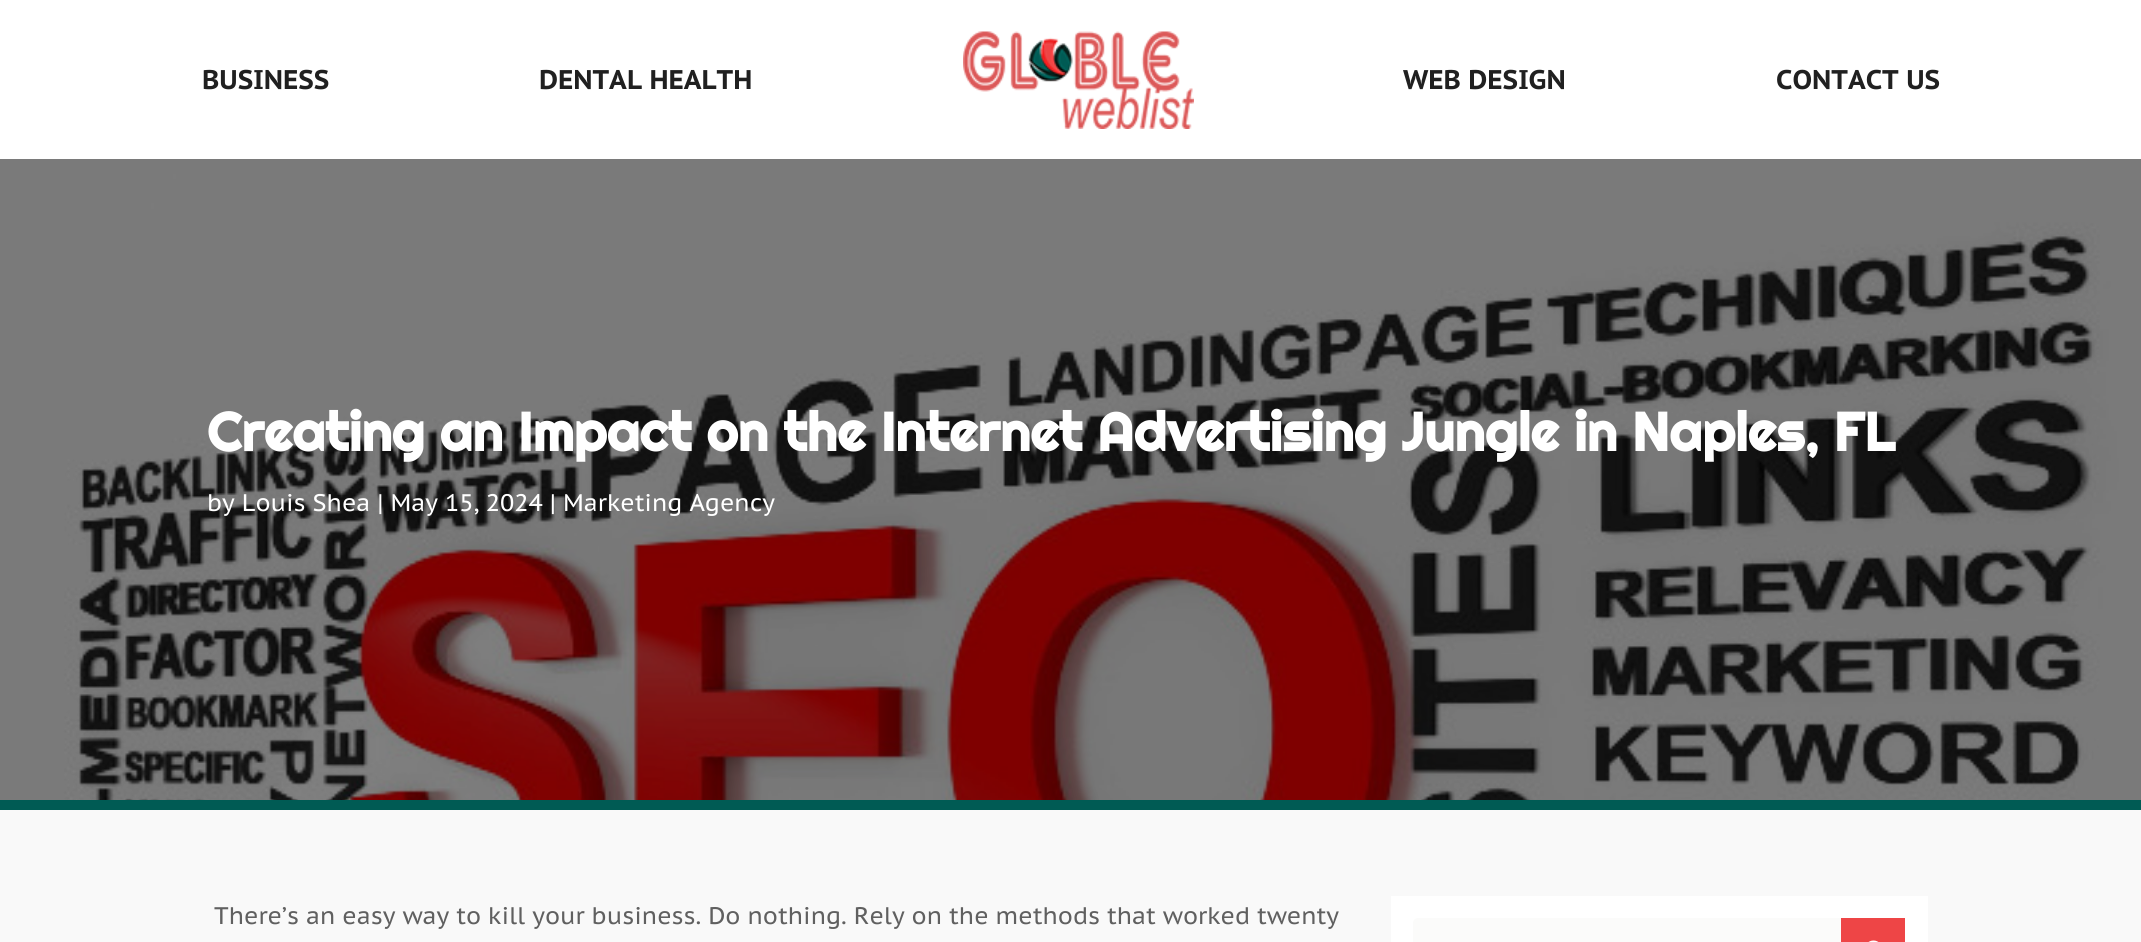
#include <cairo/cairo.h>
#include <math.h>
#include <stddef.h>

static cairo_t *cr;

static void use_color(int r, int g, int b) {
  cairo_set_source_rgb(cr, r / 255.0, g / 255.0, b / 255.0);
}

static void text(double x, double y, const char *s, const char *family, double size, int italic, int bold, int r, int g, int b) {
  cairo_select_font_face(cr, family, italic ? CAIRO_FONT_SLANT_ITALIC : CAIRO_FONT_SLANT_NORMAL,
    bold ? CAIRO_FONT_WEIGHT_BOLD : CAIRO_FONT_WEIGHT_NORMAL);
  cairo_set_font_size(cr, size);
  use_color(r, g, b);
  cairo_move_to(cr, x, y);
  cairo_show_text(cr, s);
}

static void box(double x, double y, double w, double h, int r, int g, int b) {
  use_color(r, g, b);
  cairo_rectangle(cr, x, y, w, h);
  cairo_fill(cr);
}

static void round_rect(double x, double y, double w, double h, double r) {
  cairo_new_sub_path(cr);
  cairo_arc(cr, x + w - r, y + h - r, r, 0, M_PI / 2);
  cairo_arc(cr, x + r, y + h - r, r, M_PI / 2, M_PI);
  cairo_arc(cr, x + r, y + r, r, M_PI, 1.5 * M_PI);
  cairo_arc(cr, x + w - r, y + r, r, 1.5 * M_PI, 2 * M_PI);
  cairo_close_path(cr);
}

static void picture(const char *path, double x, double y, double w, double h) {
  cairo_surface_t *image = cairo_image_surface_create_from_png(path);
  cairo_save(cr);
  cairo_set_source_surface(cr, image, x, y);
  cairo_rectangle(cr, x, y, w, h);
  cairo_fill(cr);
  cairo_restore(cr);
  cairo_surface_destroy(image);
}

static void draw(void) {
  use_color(255, 255, 255);
  cairo_paint(cr);
  picture("img_01.png", 963, 31, 231, 98);
  picture("img_02.png", 0, 159, 2141, 641);
  box(0, 800, 2141, 10, 0, 91, 84);
  box(0, 810, 2141, 132, 249, 249, 249);
  box(1391, 896, 537, 46, 255, 255, 255);
  use_color(251, 251, 250);
  round_rect(1413, 918, 492, 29, 5);
  cairo_fill(cr);
  box(1841, 918, 64, 24, 238, 69, 70);
  picture("img_03.png", 1868, 940, 11, 2);
  text(202, 89, "BUSINESS", "PT Sans Caption", 27, 0, 1, 32, 32, 32);
  text(539, 89, "DENTAL HEALTH", "PT Sans Caption", 27, 0, 1, 32, 32, 32);
  text(1403, 89, "WEB DESIGN", "PT Sans Caption", 27, 0, 1, 32, 32, 32);
  text(1776, 89, "CONTACT US", "PT Sans Caption", 27, 0, 1, 32, 32, 32);
  text(207, 451, "Creating an Impact on the Internet Advertising Jungle in Naples, FL", "Righteous", 54, 0, 1, 255, 255, 255);
  text(207, 511, "by Louis Shea | May 15, 2024 | Marketing Agency", "PT Sans Caption", 24, 0, 0, 255, 255, 255);
  text(214, 924, "There’s an easy way to kill your business. Do nothing. Rely on the methods that worked twenty", "PT Sans Caption", 24, 0, 0, 96, 96, 96);
}

int main(void) {
  cairo_surface_t *surface = cairo_image_surface_create(CAIRO_FORMAT_RGB24, 2141, 942);
  cr = cairo_create(surface);
  cairo_font_options_t *options = cairo_font_options_create();
  cairo_font_options_set_hint_metrics(options, CAIRO_HINT_METRICS_OFF);
  cairo_font_options_set_hint_style(options, CAIRO_HINT_STYLE_NONE);
  cairo_set_font_options(cr, options);
  cairo_set_miter_limit(cr, 4);
  draw();
  cairo_surface_write_to_png(surface, "out.png");
  cairo_font_options_destroy(options);
  cairo_destroy(cr);
  cairo_surface_destroy(surface);
  return 0;
}
